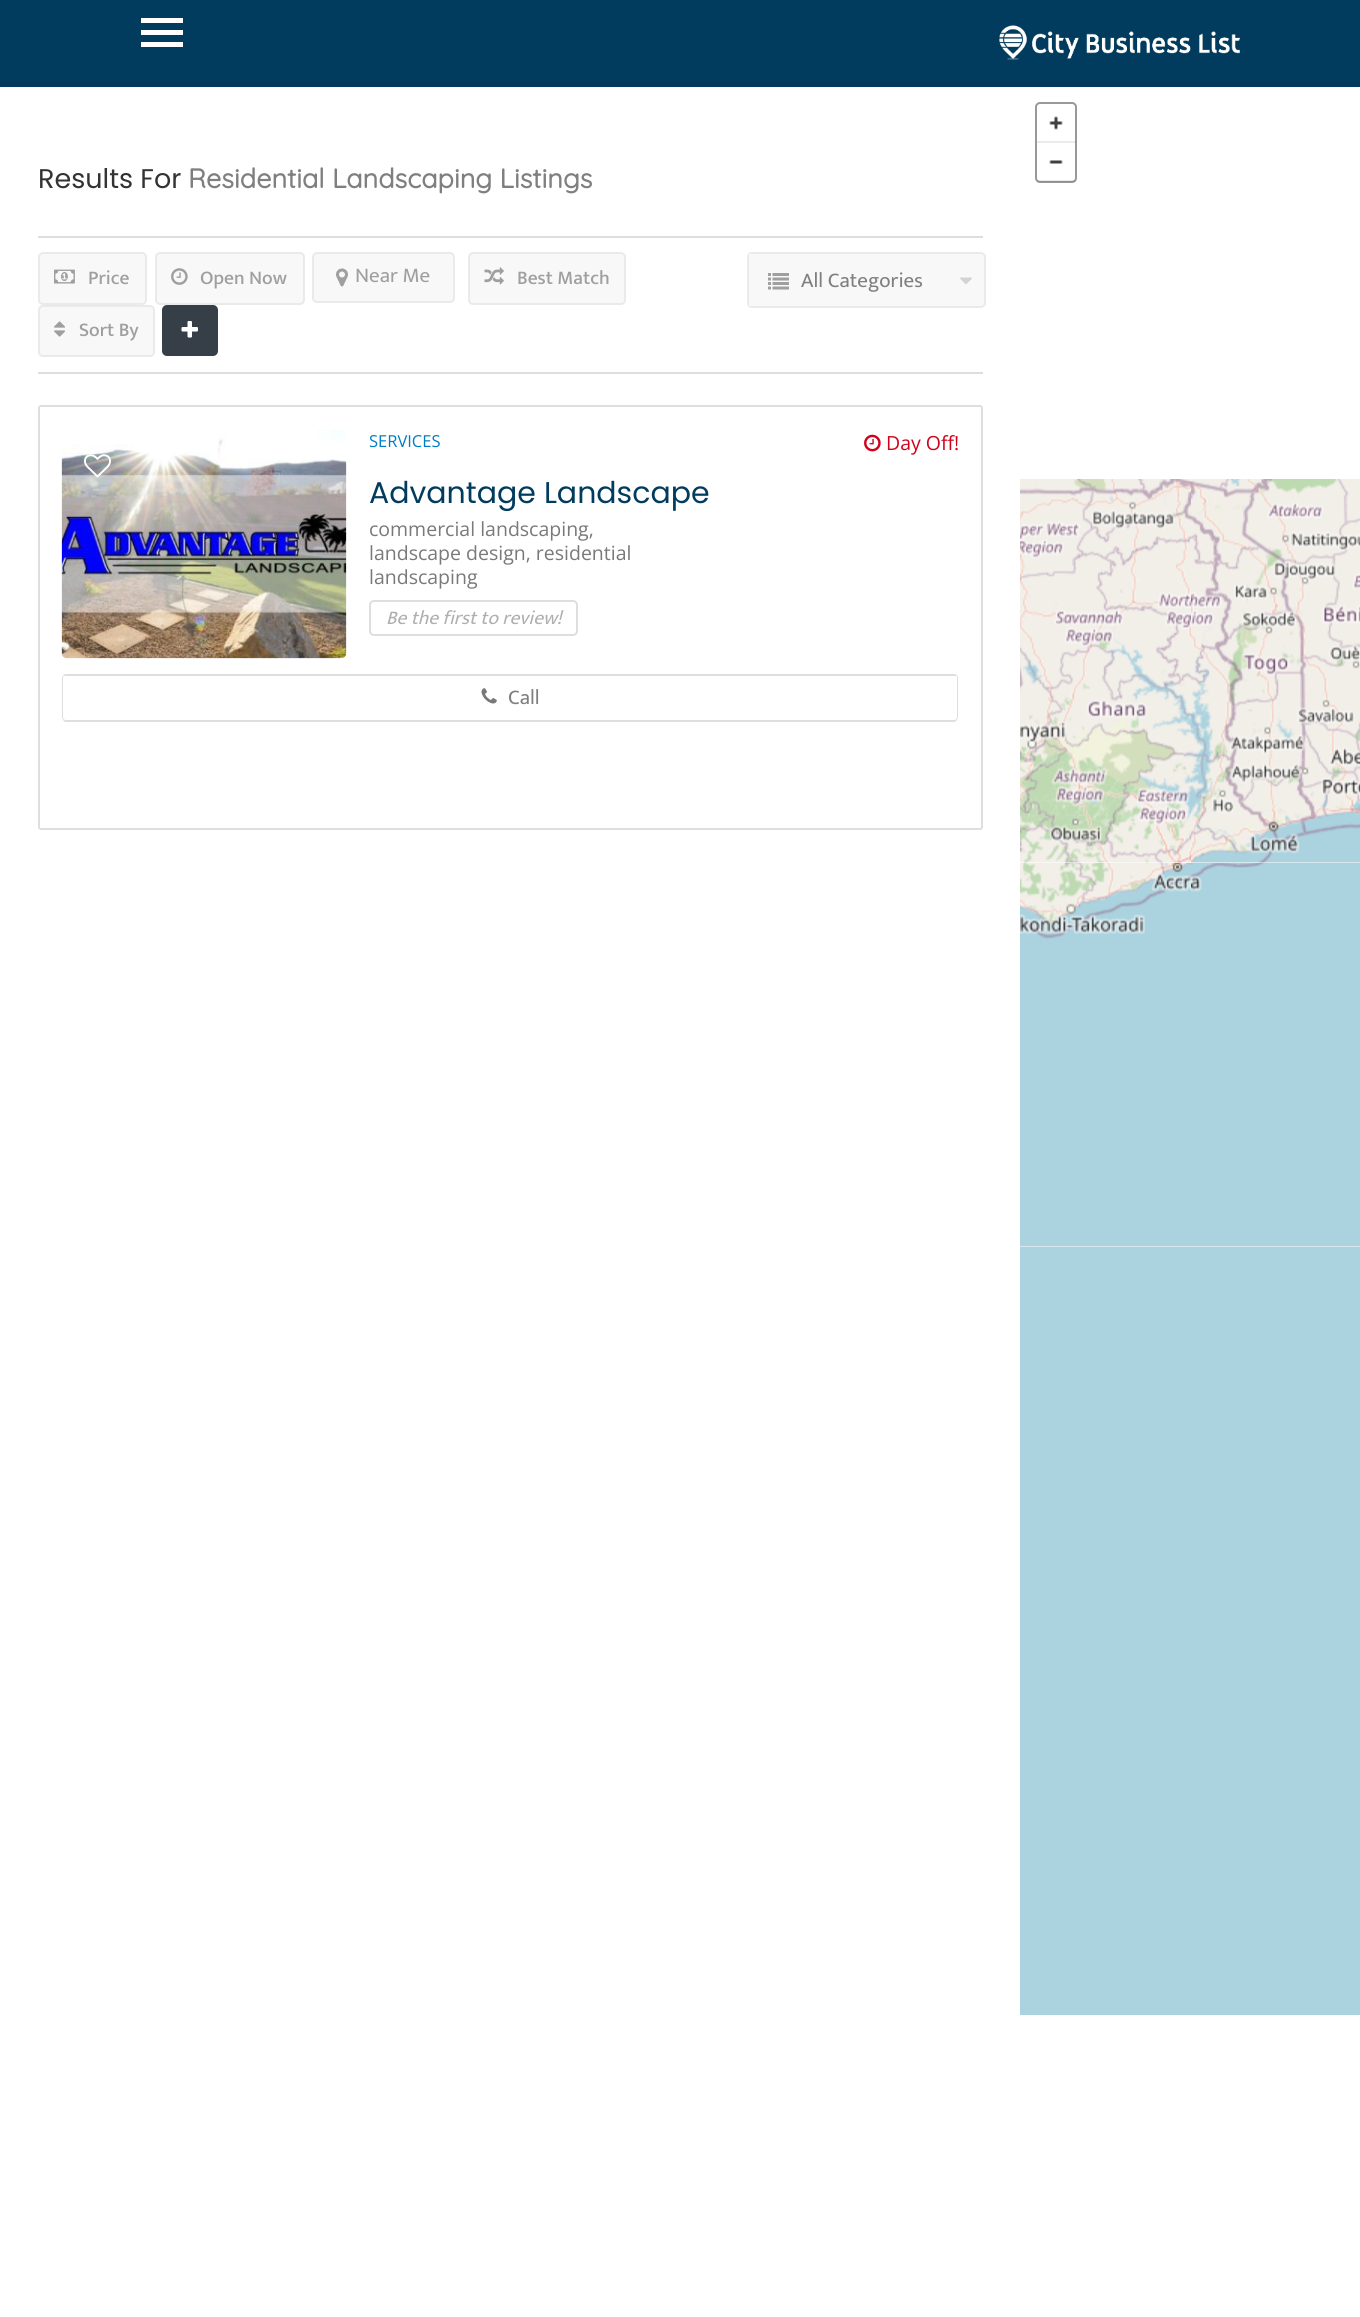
#include <cairo/cairo.h>
#include <math.h>
#include <stddef.h>

static cairo_t *cr;

static void use_color(int r, int g, int b) {
  cairo_set_source_rgb(cr, r / 255.0, g / 255.0, b / 255.0);
}

static void text(double x, double y, const char *s, const char *family, double size, int italic, int bold, int r, int g, int b) {
  cairo_select_font_face(cr, family, italic ? CAIRO_FONT_SLANT_ITALIC : CAIRO_FONT_SLANT_NORMAL,
    bold ? CAIRO_FONT_WEIGHT_BOLD : CAIRO_FONT_WEIGHT_NORMAL);
  cairo_set_font_size(cr, size);
  use_color(r, g, b);
  cairo_move_to(cr, x, y);
  cairo_show_text(cr, s);
}

static void box(double x, double y, double w, double h, int r, int g, int b) {
  use_color(r, g, b);
  cairo_rectangle(cr, x, y, w, h);
  cairo_fill(cr);
}

static void round_rect(double x, double y, double w, double h, double r) {
  cairo_new_sub_path(cr);
  cairo_arc(cr, x + w - r, y + h - r, r, 0, M_PI / 2);
  cairo_arc(cr, x + r, y + h - r, r, M_PI / 2, M_PI);
  cairo_arc(cr, x + r, y + r, r, M_PI, 1.5 * M_PI);
  cairo_arc(cr, x + w - r, y + r, r, 1.5 * M_PI, 2 * M_PI);
  cairo_close_path(cr);
}

static void picture(const char *path, double x, double y, double w, double h) {
  cairo_surface_t *image = cairo_image_surface_create_from_png(path);
  cairo_save(cr);
  cairo_set_source_surface(cr, image, x, y);
  cairo_rectangle(cr, x, y, w, h);
  cairo_fill(cr);
  cairo_restore(cr);
  cairo_surface_destroy(image);
}

static void draw(void) {
  use_color(255, 255, 255);
  cairo_paint(cr);
  box(0, 0, 1360, 87, 1, 59, 93);
  box(141, 18, 42, 5, 255, 255, 255);
  box(141, 30, 42, 5, 255, 255, 255);
  box(141, 42, 42, 5, 255, 255, 255);
  picture("img_01.png", 999, 25, 241, 35);
  box(38, 236, 945, 2, 222, 222, 222);
  box(38, 372, 945, 2, 222, 222, 222);
  use_color(248, 248, 248);
  round_rect(39, 253, 107, 51, 4);
  cairo_fill_preserve(cr);
  use_color(234, 234, 234);
  cairo_stroke(cr);
  picture("img_02.png", 54, 269, 21, 15);
  use_color(248, 248, 248);
  round_rect(156, 253, 148, 51, 4);
  cairo_fill_preserve(cr);
  use_color(234, 234, 234);
  cairo_stroke(cr);
  picture("img_03.png", 171, 268, 17, 17);
  use_color(248, 248, 248);
  round_rect(313, 253, 141, 49, 4);
  cairo_fill_preserve(cr);
  use_color(234, 234, 234);
  cairo_stroke(cr);
  picture("img_04.png", 336, 268, 12, 19);
  use_color(248, 248, 248);
  round_rect(469, 253, 156, 51, 4);
  cairo_fill_preserve(cr);
  use_color(234, 234, 234);
  cairo_stroke(cr);
  picture("img_05.png", 484, 267, 20, 18);
  use_color(248, 248, 248);
  round_rect(39, 306, 115, 50, 4);
  cairo_fill_preserve(cr);
  use_color(234, 234, 234);
  cairo_stroke(cr);
  picture("img_06.png", 54, 321, 11, 16);
  use_color(54, 63, 72);
  round_rect(162, 305, 56, 51, 5);
  cairo_fill(cr);
  picture("img_07.png", 181, 321, 17, 17);
  use_color(248, 248, 248);
  round_rect(748, 253, 237, 54, 4);
  cairo_fill_preserve(cr);
  use_color(234, 234, 234);
  cairo_stroke(cr);
  box(749, 254, 2, 52, 248, 248, 248);
  picture("img_08.png", 768, 273, 21, 17);
  picture("img_09.png", 960, 277, 12, 7);
  round_rect(39, 406, 943, 423, 2);
  use_color(222, 222, 222);
  cairo_stroke(cr);
  picture("img_10.png", 61, 429, 286, 230);
  picture("img_11.png", 84, 454, 27, 24);
  picture("img_12.png", 864, 434, 17, 18);
  round_rect(370, 601, 207, 34, 4);
  cairo_stroke(cr);
  cairo_set_fill_rule(cr, CAIRO_FILL_RULE_EVEN_ODD);
  cairo_new_path(cr);
  cairo_move_to(cr, 66, 674);
  cairo_line_to(cr, 954, 674);
  cairo_curve_to(cr, 956, 674, 958, 676, 958, 678);
  cairo_line_to(cr, 958, 717);
  cairo_curve_to(cr, 958, 719, 956, 722, 954, 722);
  cairo_line_to(cr, 66, 722);
  cairo_curve_to(cr, 64, 722, 62, 719, 62, 717);
  cairo_line_to(cr, 62, 678);
  cairo_curve_to(cr, 62, 676, 64, 674, 66, 674);
  cairo_close_path(cr);
  cairo_move_to(cr, 66, 674);
  cairo_line_to(cr, 954, 674);
  cairo_curve_to(cr, 956, 674, 957, 676, 957, 678);
  cairo_line_to(cr, 957, 717);
  cairo_curve_to(cr, 957, 719, 956, 720, 954, 720);
  cairo_line_to(cr, 66, 720);
  cairo_curve_to(cr, 64, 720, 63, 719, 63, 717);
  cairo_line_to(cr, 63, 678);
  cairo_curve_to(cr, 63, 676, 64, 674, 66, 674);
  cairo_close_path(cr);
  cairo_fill(cr);
  cairo_set_fill_rule(cr, CAIRO_FILL_RULE_WINDING);
  cairo_new_path(cr);
  cairo_move_to(cr, 63, 676);
  cairo_line_to(cr, 65, 674);
  cairo_line_to(cr, 955, 674);
  cairo_line_to(cr, 957, 676);
  cairo_close_path(cr);
  cairo_fill(cr);
  picture("img_13.png", 481, 688, 16, 16);
  round_rect(1036, 103, 40, 79, 4);
  use_color(153, 153, 153);
  cairo_stroke(cr);
  picture("img_14.png", 1049, 116, 14, 14);
  cairo_set_source_rgba(cr, 0, 0, 0, 0.08);
  cairo_rectangle(cr, 1037, 141, 39, 2);
  cairo_fill(cr);
  picture("img_15.png", 1049, 160, 14, 4);
  cairo_rectangle(cr, 1037, 180, 39, 2);
  cairo_fill(cr);
  picture("img_16.png", 1020, 479, 171, 384);
  picture("img_17.png", 1191, 479, 169, 384);
  picture("img_18.png", 1020, 863, 171, 384);
  picture("img_19.png", 1191, 863, 169, 384);
  box(1020, 1247, 171, 768, 170, 211, 223);
  box(1191, 1247, 169, 768, 170, 211, 223);
  text(38, 188, "Results For", "Poppins", 27, 0, 0, 51, 51, 51);
  text(188, 188, "Residential Landscaping Listings", "Quicksand", 27, 0, 1, 127, 127, 127);
  text(88, 284, "Price", "Mukta Vaani Medium", 19.5, 0, 0, 159, 159, 159);
  text(200, 284, "Open Now", "Mukta Vaani Medium", 19.5, 0, 0, 159, 159, 159);
  text(355, 282, "Near Me", "Mukta Vaani", 21, 0, 0, 159, 159, 159);
  text(517, 284, "Best Match", "Mukta Vaani Medium", 19.5, 0, 0, 159, 159, 159);
  text(79, 336, "Sort By", "Mukta Vaani Medium", 19.5, 0, 0, 159, 159, 159);
  text(801, 287, "All Categories", "Mukta Vaani", 21, 0, 0, 127, 127, 127);
  text(369, 447, "SERVICES", "Open Sans", 16.5, 0, 0, 0, 125, 194);
  text(886, 450, "Day Off!", "Open Sans", 19.5, 0, 0, 208, 2, 27);
  text(369, 503, "Advantage Landscape", "Poppins", 30, 0, 0, 1, 59, 93);
  text(369, 536, "commercial landscaping,", "Open Sans", 19.5, 0, 0, 121, 121, 121);
  text(369, 560, "landscape design, residential", "Open Sans", 19.5, 0, 0, 121, 121, 121);
  text(369, 584, "landscaping", "Open Sans", 19.5, 0, 0, 121, 121, 121);
  text(386, 624, "Be the first to review!", "Mukta Vaani", 19.5, 1, 0, 175, 175, 175);
  text(508, 704, "Call", "Mukta Vaani", 21, 0, 0, 127, 127, 127);
}

int main(void) {
  cairo_surface_t *surface = cairo_image_surface_create(CAIRO_FORMAT_RGB24, 1360, 2317);
  cr = cairo_create(surface);
  cairo_font_options_t *options = cairo_font_options_create();
  cairo_font_options_set_hint_metrics(options, CAIRO_HINT_METRICS_OFF);
  cairo_font_options_set_hint_style(options, CAIRO_HINT_STYLE_NONE);
  cairo_set_font_options(cr, options);
  cairo_set_miter_limit(cr, 4);
  draw();
  cairo_surface_write_to_png(surface, "out.png");
  cairo_font_options_destroy(options);
  cairo_destroy(cr);
  cairo_surface_destroy(surface);
  return 0;
}
